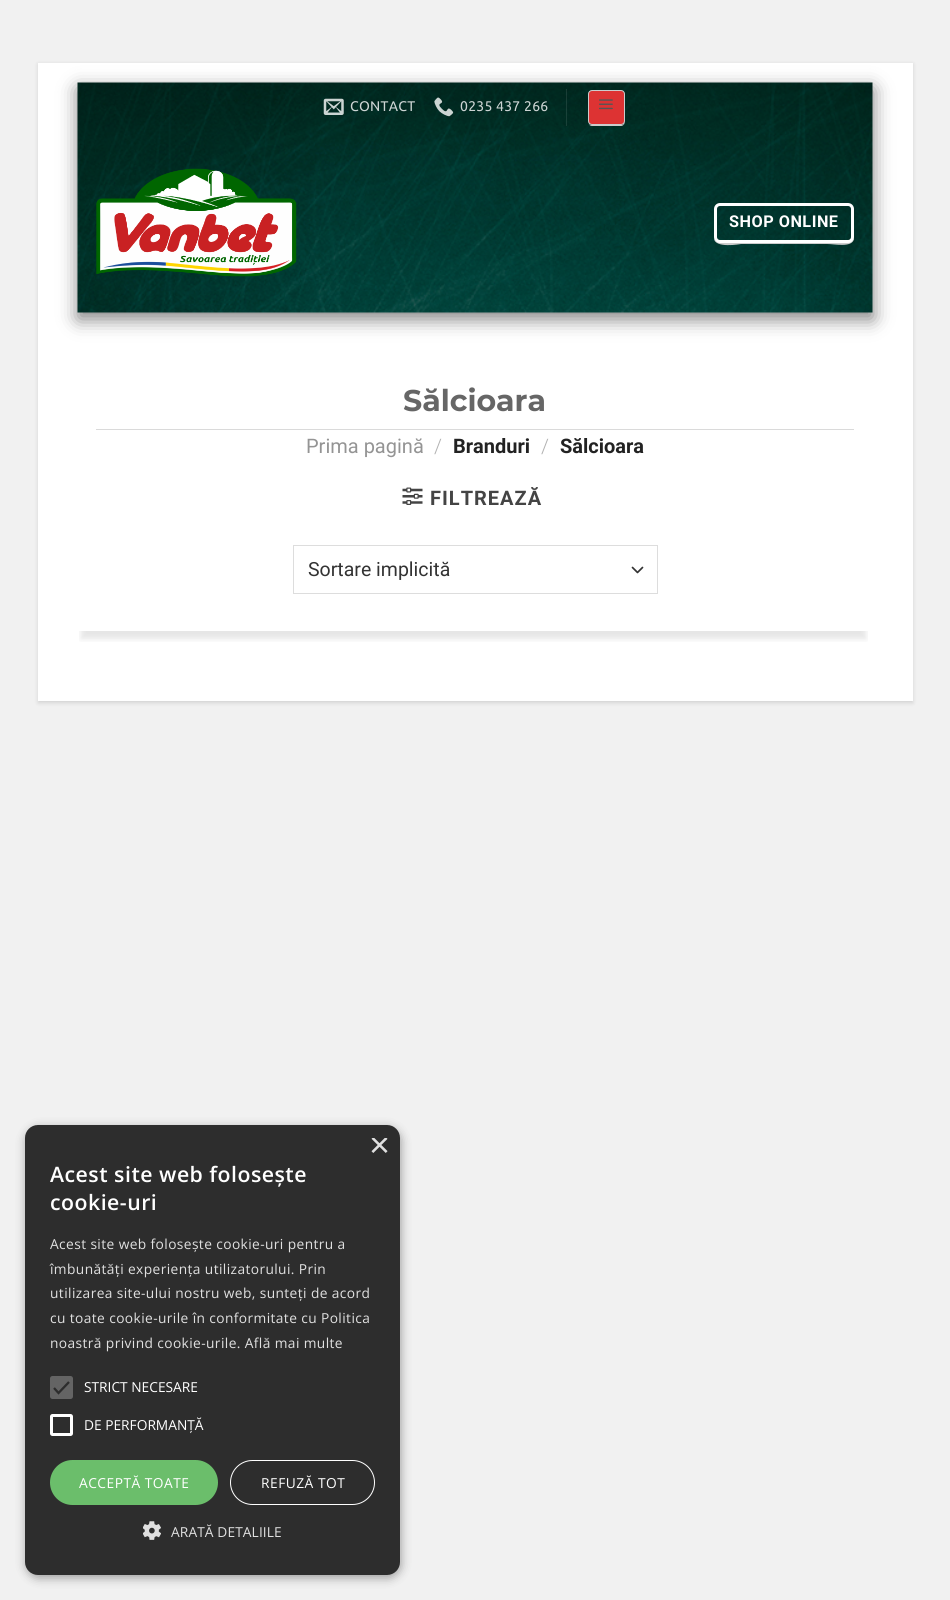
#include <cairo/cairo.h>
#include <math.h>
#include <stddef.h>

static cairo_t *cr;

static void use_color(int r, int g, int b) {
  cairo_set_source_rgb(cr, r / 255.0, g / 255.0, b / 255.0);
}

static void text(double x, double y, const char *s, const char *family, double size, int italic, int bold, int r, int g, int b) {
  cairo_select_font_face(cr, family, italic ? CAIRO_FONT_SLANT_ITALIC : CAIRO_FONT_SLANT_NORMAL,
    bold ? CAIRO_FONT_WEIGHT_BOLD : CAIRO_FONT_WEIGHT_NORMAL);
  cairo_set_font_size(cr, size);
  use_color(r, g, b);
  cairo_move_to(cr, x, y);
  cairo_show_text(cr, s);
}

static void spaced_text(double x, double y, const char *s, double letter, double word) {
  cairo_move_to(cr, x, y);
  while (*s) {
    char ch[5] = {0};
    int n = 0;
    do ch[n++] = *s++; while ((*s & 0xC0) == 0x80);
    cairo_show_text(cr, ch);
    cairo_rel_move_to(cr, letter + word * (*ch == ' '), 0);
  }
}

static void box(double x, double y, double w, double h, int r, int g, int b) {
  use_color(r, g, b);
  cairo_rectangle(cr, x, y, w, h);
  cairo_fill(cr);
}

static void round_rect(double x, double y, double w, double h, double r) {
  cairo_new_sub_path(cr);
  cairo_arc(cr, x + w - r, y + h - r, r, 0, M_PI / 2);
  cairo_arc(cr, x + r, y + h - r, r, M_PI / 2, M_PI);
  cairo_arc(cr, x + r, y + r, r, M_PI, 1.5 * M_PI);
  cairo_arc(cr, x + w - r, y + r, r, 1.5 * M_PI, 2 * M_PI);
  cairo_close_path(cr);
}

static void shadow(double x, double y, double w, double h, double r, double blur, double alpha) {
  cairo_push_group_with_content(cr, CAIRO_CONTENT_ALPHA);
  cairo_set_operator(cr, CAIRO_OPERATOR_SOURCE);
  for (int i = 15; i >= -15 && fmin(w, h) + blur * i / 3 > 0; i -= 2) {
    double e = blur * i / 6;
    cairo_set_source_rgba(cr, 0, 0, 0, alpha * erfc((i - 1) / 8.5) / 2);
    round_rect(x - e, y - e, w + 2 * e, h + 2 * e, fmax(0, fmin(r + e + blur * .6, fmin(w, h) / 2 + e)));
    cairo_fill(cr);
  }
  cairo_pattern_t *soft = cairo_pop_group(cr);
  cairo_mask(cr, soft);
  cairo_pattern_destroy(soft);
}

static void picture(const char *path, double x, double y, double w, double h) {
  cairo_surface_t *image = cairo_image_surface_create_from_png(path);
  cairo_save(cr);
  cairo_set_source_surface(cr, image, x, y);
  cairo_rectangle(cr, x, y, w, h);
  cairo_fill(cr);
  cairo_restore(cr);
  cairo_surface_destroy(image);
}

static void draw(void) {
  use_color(241, 241, 241);
  cairo_paint(cr);
  use_color(0, 0, 0);
  shadow(38, 64, 875, 639, 0, 2, 0.13);
  box(38, 63, 875, 638, 255, 255, 255);
  use_color(0, 0, 0);
  shadow(78, 89, 795, 230, 0, 9.5, 0.5);
  picture("img_01.png", 77, 82, 796, 231);
  picture("img_02.png", 323, 98, 21, 17);
  picture("img_03.png", 434, 97, 20, 20);
  cairo_set_source_rgba(cr, 1, 1, 1, 0.1);
  cairo_rectangle(cr, 566, 89, 1, 37);
  cairo_fill(cr);
  use_color(204, 204, 204);
  cairo_new_path(cr);
  cairo_move_to(cr, 588.5, 123.5);
  cairo_curve_to(cr, 589, 125, 590.5, 126, 592, 126);
  cairo_line_to(cr, 621, 126);
  cairo_curve_to(cr, 623, 126, 625, 124, 625, 122);
  cairo_line_to(cr, 625, 121);
  cairo_curve_to(cr, 625, 123.5, 623.5, 125, 621, 125);
  cairo_line_to(cr, 591, 125);
  cairo_curve_to(cr, 590, 125, 589, 124.5, 588.5, 123.5);
  cairo_close_path(cr);
  cairo_fill(cr);
  use_color(221, 51, 51);
  round_rect(588.5, 90.5, 36, 34, 3.5);
  cairo_fill_preserve(cr);
  use_color(204, 204, 204);
  cairo_set_line_width(cr, 1);
  cairo_stroke(cr);
  picture("img_04.png", 599, 99, 14, 11);
  picture("img_05.png", 96, 168, 201, 109);
  cairo_new_path(cr);
  cairo_move_to(cr, 714, 238);
  cairo_curve_to(cr, 714, 249, 741, 244, 741, 244);
  cairo_line_to(cr, 827, 244);
  cairo_curve_to(cr, 835, 244, 852, 248, 854, 239);
  cairo_line_to(cr, 854, 208);
  cairo_line_to(cr, 854, 236);
  cairo_curve_to(cr, 854, 240, 851, 242, 848, 242);
  cairo_line_to(cr, 720, 242);
  cairo_curve_to(cr, 717, 242, 715, 241, 714, 238);
  cairo_close_path(cr);
  cairo_fill(cr);
  round_rect(715.5, 204.5, 137, 37, 4.5);
  use_color(255, 255, 255);
  cairo_set_line_width(cr, 3);
  cairo_stroke(cr);
  cairo_save(cr);
  cairo_rectangle(cr, 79, 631, 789, 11);
  cairo_clip(cr);
  use_color(0, 0, 0);
  shadow(81, 330, 785, 309, 0, 3, 0.1);
  cairo_restore(cr);
  box(96, 429, 758, 1, 218, 218, 218);
  picture("img_06.png", 402, 487, 21, 18);
  cairo_new_path(cr);
  cairo_move_to(cr, 632.5, 567.5);
  cairo_line_to(cr, 637.5, 572.5);
  cairo_line_to(cr, 642.5, 567.5);
  use_color(51, 51, 51);
  cairo_set_line_width(cr, 1.7);
  cairo_set_line_cap(cr, CAIRO_LINE_CAP_ROUND);
  cairo_set_line_join(cr, CAIRO_LINE_JOIN_ROUND);
  cairo_stroke(cr);
  cairo_rectangle(cr, 293.5, 545.5, 364, 48);
  use_color(221, 221, 221);
  cairo_set_line_width(cr, 1);
  cairo_set_line_cap(cr, CAIRO_LINE_CAP_BUTT);
  cairo_set_line_join(cr, CAIRO_LINE_JOIN_MITER);
  cairo_stroke(cr);
  use_color(0, 0, 0);
  shadow(26, 1128, 375, 450, 13, 5, 0.35);
  use_color(45, 45, 45);
  round_rect(25, 1125, 375, 450, 13);
  cairo_fill(cr);
  use_color(100, 100, 100);
  round_rect(50, 1376, 23, 23, 2.5);
  cairo_fill(cr);
  cairo_new_path(cr);
  cairo_move_to(cr, 54, 1388);
  cairo_line_to(cr, 58.5, 1393);
  cairo_line_to(cr, 69, 1382);
  use_color(45, 45, 45);
  cairo_set_line_width(cr, 2.3);
  cairo_stroke(cr);
  round_rect(51.5, 1415.5, 20, 19, 1);
  use_color(255, 255, 255);
  cairo_set_line_width(cr, 3);
  cairo_stroke(cr);
  use_color(107, 190, 107);
  round_rect(50, 1460, 168, 45, 22.5);
  cairo_fill(cr);
  round_rect(230.5, 1460.5, 144, 44, 22);
  use_color(255, 255, 255);
  cairo_set_line_width(cr, 1);
  cairo_stroke(cr);
  picture("img_07.png", 143, 1521, 18, 19);
  cairo_select_font_face(cr, "Ubuntu", CAIRO_FONT_SLANT_NORMAL, CAIRO_FONT_WEIGHT_NORMAL);
  cairo_set_font_size(cr, 14);
  use_color(204, 212, 211);
  spaced_text(350, 111, "CONTACT", 0.25, 0);
  spaced_text(460, 111, "0235 437 266", 0.25, 0);
  cairo_select_font_face(cr, "Roboto", CAIRO_FONT_SLANT_NORMAL, CAIRO_FONT_WEIGHT_BOLD);
  cairo_set_font_size(cr, 16.25);
  use_color(255, 255, 255);
  spaced_text(729, 227, "SHOP ONLINE", 0.5, 0);
  text(403, 411, "Sălcioara", "Montserrat", 30, 0, 1, 102, 102, 102);
  text(306, 453, "Prima pagină", "Roboto", 20, 0, 0, 148, 148, 148);
  text(434, 453, "/", "Roboto Light", 20, 0, 0, 178, 178, 178);
  text(453, 453, "Branduri", "Roboto", 20, 0, 1, 34, 34, 34);
  text(541, 453, "/", "Roboto Light", 20, 0, 0, 178, 178, 178);
  text(560, 453, "Sălcioara", "Roboto", 20, 0, 1, 34, 34, 34);
  use_color(68, 68, 68);
  spaced_text(430, 505, "FILTREAZĂ", 1, 0);
  text(308, 576, "Sortare implicită", "Roboto", 19.5, 0, 0, 51, 51, 51);
  cairo_save(cr);
  cairo_rectangle(cr, 369, 1138, 19, 18);
  cairo_clip(cr);
  text(369, 1157, "×", "Liberation Sans", 36, 0, 0, 224, 224, 224);
  cairo_restore(cr);
  cairo_select_font_face(cr, "Open Sans SemiBold", CAIRO_FONT_SLANT_NORMAL, CAIRO_FONT_WEIGHT_NORMAL);
  cairo_set_font_size(cr, 21.25);
  use_color(255, 255, 255);
  spaced_text(50, 1182, "Acest site web folosește", 0.5, 0);
  spaced_text(50, 1210, "cookie-uri", 0.5, 0);
  cairo_select_font_face(cr, "Open Sans", CAIRO_FONT_SLANT_NORMAL, CAIRO_FONT_WEIGHT_NORMAL);
  cairo_set_font_size(cr, 13.75);
  use_color(224, 224, 224);
  spaced_text(50, 1249, "Acest site web folosește cookie-uri pentru a", 0.4, 0);
  spaced_text(50, 1274, "îmbunătăți experiența utilizatorului. Prin", 0.4, 0);
  spaced_text(50, 1298, "utilizarea site-ului nostru web, sunteți de acord", 0.4, 0);
  spaced_text(50, 1323, "cu toate cookie-urile în conformitate cu Politica", 0.4, 0);
  spaced_text(50, 1348, "noastră privind cookie-urile. Află mai multe", 0.4, 0);
  text(84, 1392, "STRICT NECESARE", "Open Sans", 13.75, 0, 0, 255, 255, 255);
  text(84, 1430, "DE PERFORMANȚĂ", "Open Sans", 13.75, 0, 0, 255, 255, 255);
  spaced_text(79, 1488, "ACCEPTĂ TOATE", 0.5, 0);
  spaced_text(261, 1488, "REFUZĂ TOT", 0.5, 0);
  use_color(224, 224, 224);
  spaced_text(171, 1537, "ARATĂ DETALIILE", 0.1, 0);
}

int main(void) {
  cairo_surface_t *surface = cairo_image_surface_create(CAIRO_FORMAT_RGB24, 950, 1600);
  cr = cairo_create(surface);
  cairo_font_options_t *options = cairo_font_options_create();
  cairo_font_options_set_hint_metrics(options, CAIRO_HINT_METRICS_OFF);
  cairo_font_options_set_hint_style(options, CAIRO_HINT_STYLE_NONE);
  cairo_set_font_options(cr, options);
  cairo_set_miter_limit(cr, 4);
  draw();
  cairo_surface_write_to_png(surface, "out.png");
  cairo_font_options_destroy(options);
  cairo_destroy(cr);
  cairo_surface_destroy(surface);
  return 0;
}
